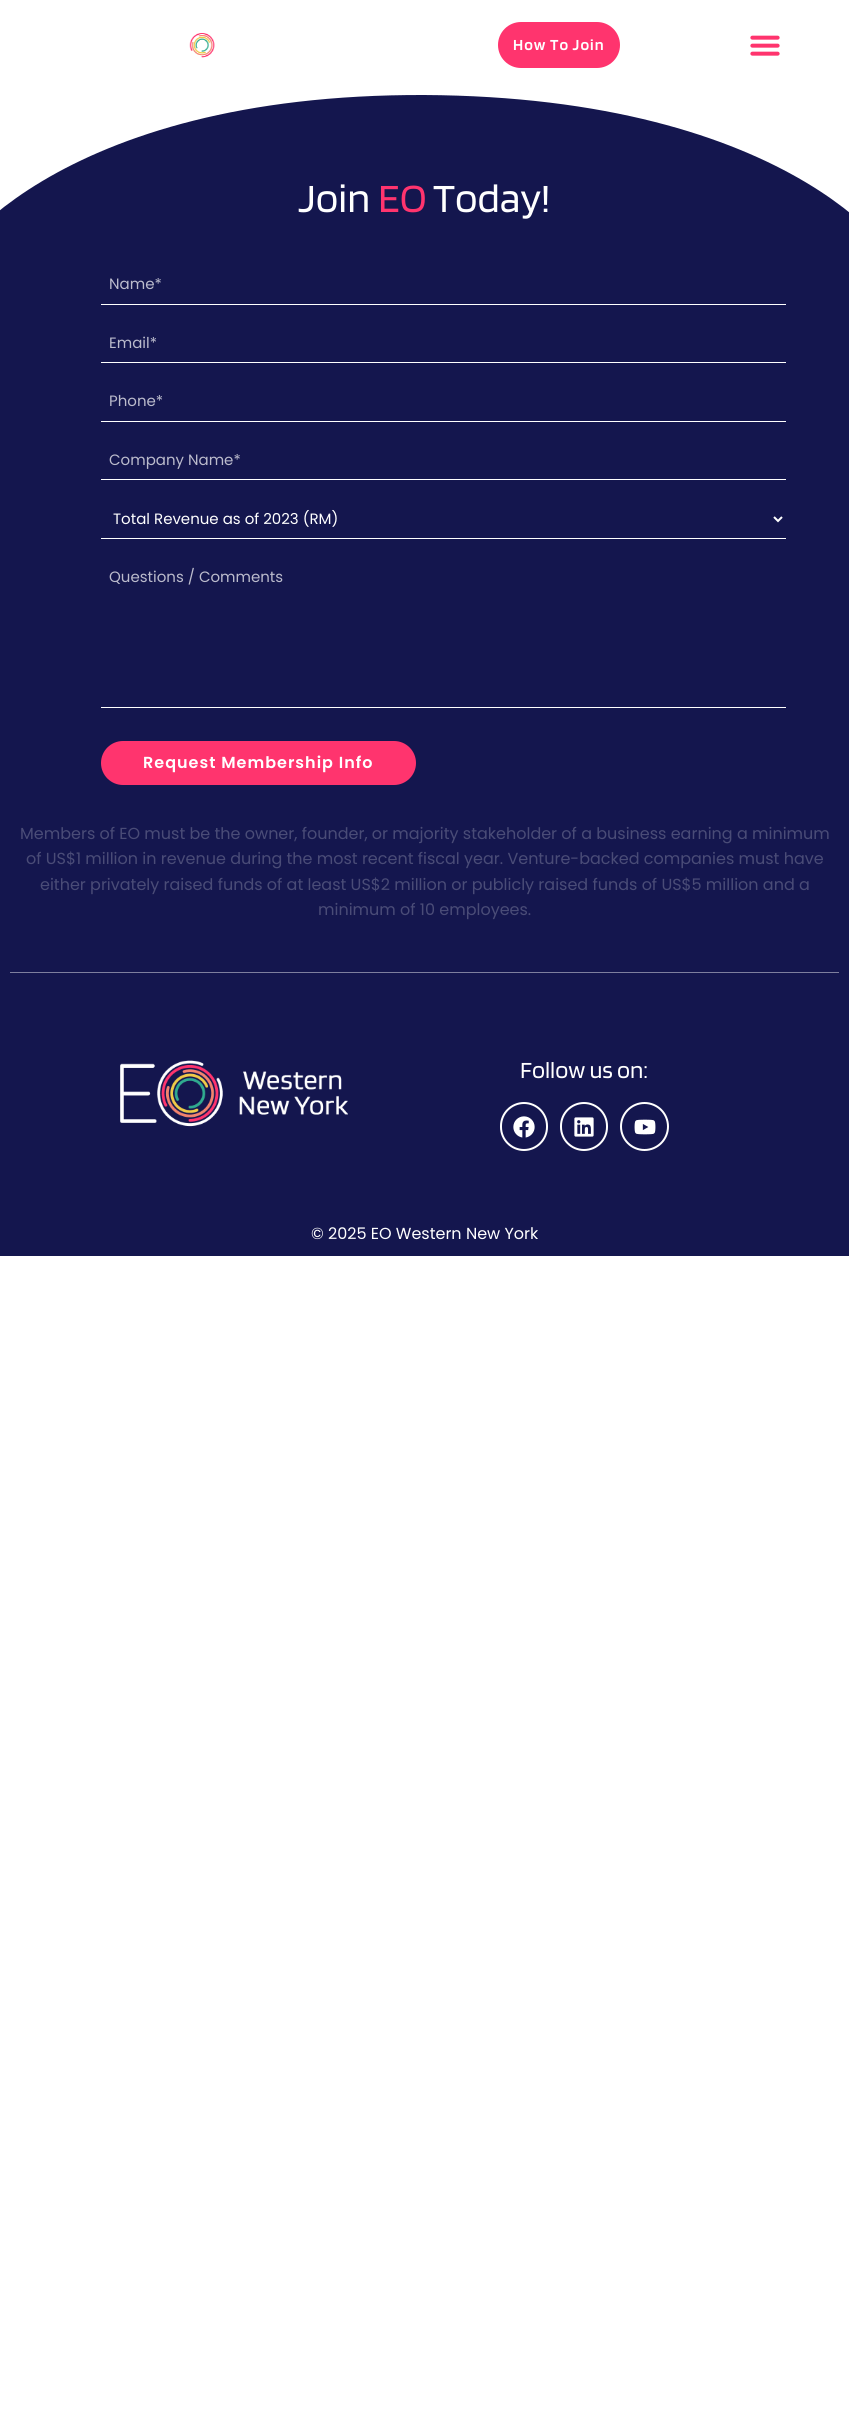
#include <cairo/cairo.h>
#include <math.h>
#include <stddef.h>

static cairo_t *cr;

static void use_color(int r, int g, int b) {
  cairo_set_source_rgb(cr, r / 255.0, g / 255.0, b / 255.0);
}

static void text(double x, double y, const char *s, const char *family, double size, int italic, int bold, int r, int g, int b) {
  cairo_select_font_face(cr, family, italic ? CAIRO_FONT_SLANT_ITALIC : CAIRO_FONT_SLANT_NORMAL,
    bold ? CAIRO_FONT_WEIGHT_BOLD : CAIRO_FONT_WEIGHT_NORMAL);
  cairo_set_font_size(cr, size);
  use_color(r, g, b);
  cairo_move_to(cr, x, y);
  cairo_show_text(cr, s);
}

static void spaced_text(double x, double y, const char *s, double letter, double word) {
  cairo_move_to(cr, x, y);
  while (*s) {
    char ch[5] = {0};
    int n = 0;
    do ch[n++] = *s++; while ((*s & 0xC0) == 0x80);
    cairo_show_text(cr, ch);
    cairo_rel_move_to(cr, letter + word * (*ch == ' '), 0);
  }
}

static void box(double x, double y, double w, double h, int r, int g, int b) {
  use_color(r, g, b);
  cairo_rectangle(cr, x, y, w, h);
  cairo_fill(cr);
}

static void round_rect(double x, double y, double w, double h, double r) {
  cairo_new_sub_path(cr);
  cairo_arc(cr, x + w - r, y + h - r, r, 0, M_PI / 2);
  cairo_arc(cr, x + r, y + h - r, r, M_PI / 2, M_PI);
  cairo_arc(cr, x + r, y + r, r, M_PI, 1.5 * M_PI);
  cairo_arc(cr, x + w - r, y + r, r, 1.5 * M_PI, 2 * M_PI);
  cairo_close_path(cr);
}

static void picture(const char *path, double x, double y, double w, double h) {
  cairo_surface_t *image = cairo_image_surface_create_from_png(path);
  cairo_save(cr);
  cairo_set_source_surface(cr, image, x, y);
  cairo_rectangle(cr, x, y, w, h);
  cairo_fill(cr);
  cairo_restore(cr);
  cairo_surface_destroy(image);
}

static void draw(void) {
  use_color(255, 255, 255);
  cairo_paint(cr);
  picture("img_01.png", 189, 33, 26, 25);
  use_color(255, 52, 110);
  round_rect(498, 22, 122, 46, 23);
  cairo_fill(cr);
  picture("img_02.png", 750, 35, 30, 21);
  box(0, 95, 849, 1161, 20, 22, 78);
  use_color(255, 255, 255);
  cairo_new_path(cr);
  cairo_move_to(cr, 424, 95);
  cairo_curve_to(cr, 789, 97, 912, 257, 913, 298);
  cairo_line_to(cr, 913, 89);
  cairo_line_to(cr, -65, 89);
  cairo_line_to(cr, -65, 296);
  cairo_curve_to(cr, -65, 258, 59, 94, 424, 95);
  cairo_close_path(cr);
  cairo_fill(cr);
  box(101, 304, 685, 1, 255, 255, 255);
  box(101, 362, 685, 1, 255, 255, 255);
  box(101, 421, 685, 1, 255, 255, 255);
  box(101, 479, 685, 1, 255, 255, 255);
  box(101, 538, 685, 1, 255, 255, 255);
  cairo_new_path(cr);
  cairo_move_to(cr, 774, 517);
  cairo_line_to(cr, 778, 521);
  cairo_line_to(cr, 782, 517);
  cairo_stroke(cr);
  box(101, 707, 685, 1, 255, 255, 255);
  use_color(255, 52, 110);
  round_rect(101, 741, 315, 44, 22);
  cairo_fill(cr);
  box(10, 972, 829, 1, 126, 127, 158);
  picture("img_03.png", 120, 1060, 228, 67);
  round_rect(501, 1103, 46, 47, 23);
  use_color(255, 255, 255);
  cairo_stroke(cr);
  picture("img_04.png", 513, 1116, 22, 22);
  round_rect(561, 1103, 46, 47, 23);
  cairo_stroke(cr);
  picture("img_05.png", 574, 1117, 20, 20);
  cairo_arc(cr, 644.5, 1126.5, 23.5, 0, 2 * M_PI);
  cairo_stroke(cr);
  picture("img_06.png", 634, 1119, 22, 16);
  cairo_select_font_face(cr, "Blinker SemiBold", CAIRO_FONT_SLANT_NORMAL, CAIRO_FONT_WEIGHT_NORMAL);
  cairo_set_font_size(cr, 16);
  spaced_text(513, 50, "How To Join", 1, 0);
  text(298, 212, "Join", "Blinker", 41.5, 0, 0, 255, 255, 255);
  text(378, 212, "EO", "Blinker", 41.5, 0, 0, 255, 52, 110);
  text(433, 212, "Today!", "Blinker", 41.5, 0, 0, 255, 255, 255);
  text(109, 289, "Name*", "Poppins", 15, 0, 0, 187, 187, 204);
  text(109, 348, "Email*", "Poppins", 15, 0, 0, 187, 187, 204);
  text(109, 406, "Phone*", "Poppins", 15, 0, 0, 187, 187, 204);
  text(109, 465, "Company Name*", "Poppins", 15, 0, 0, 187, 187, 204);
  text(113, 524, "Total Revenue as of 2023 (RM)", "Poppins", 15, 0, 0, 255, 255, 255);
  text(109, 582, "Questions / Comments", "Poppins", 15, 0, 0, 187, 187, 204);
  cairo_select_font_face(cr, "Poppins SemiBold", CAIRO_FONT_SLANT_NORMAL, CAIRO_FONT_WEIGHT_NORMAL);
  cairo_set_font_size(cr, 16);
  use_color(255, 255, 255);
  spaced_text(143, 768, "Request Membership Info", 1, 0);
  text(20, 839, "Members of EO must be the owner, founder, or majority stakeholder of a business earning a minimum", "Poppins", 16, 0, 0, 74, 76, 119);
  text(26, 864, "of US$1 million in revenue during the most recent fiscal year. Venture-backed companies must have", "Poppins", 16, 0, 0, 74, 76, 119);
  text(40, 890, "either privately raised funds of at least US$2 million or publicly raised funds of US$5 million and a", "Poppins", 16, 0, 0, 74, 76, 119);
  text(318, 915, "minimum of 10 employees.", "Poppins", 16, 0, 0, 74, 76, 119);
  text(520, 1078, "Follow us on:", "Blinker", 24, 0, 0, 255, 255, 255);
  text(311, 1239, "© 2025 EO Western New York", "Poppins", 16, 0, 0, 255, 255, 255);
}

int main(void) {
  cairo_surface_t *surface = cairo_image_surface_create(CAIRO_FORMAT_RGB24, 849, 2427);
  cr = cairo_create(surface);
  cairo_font_options_t *options = cairo_font_options_create();
  cairo_font_options_set_hint_metrics(options, CAIRO_HINT_METRICS_OFF);
  cairo_font_options_set_hint_style(options, CAIRO_HINT_STYLE_NONE);
  cairo_set_font_options(cr, options);
  cairo_set_miter_limit(cr, 4);
  draw();
  cairo_surface_write_to_png(surface, "out.png");
  cairo_font_options_destroy(options);
  cairo_destroy(cr);
  cairo_surface_destroy(surface);
  return 0;
}
